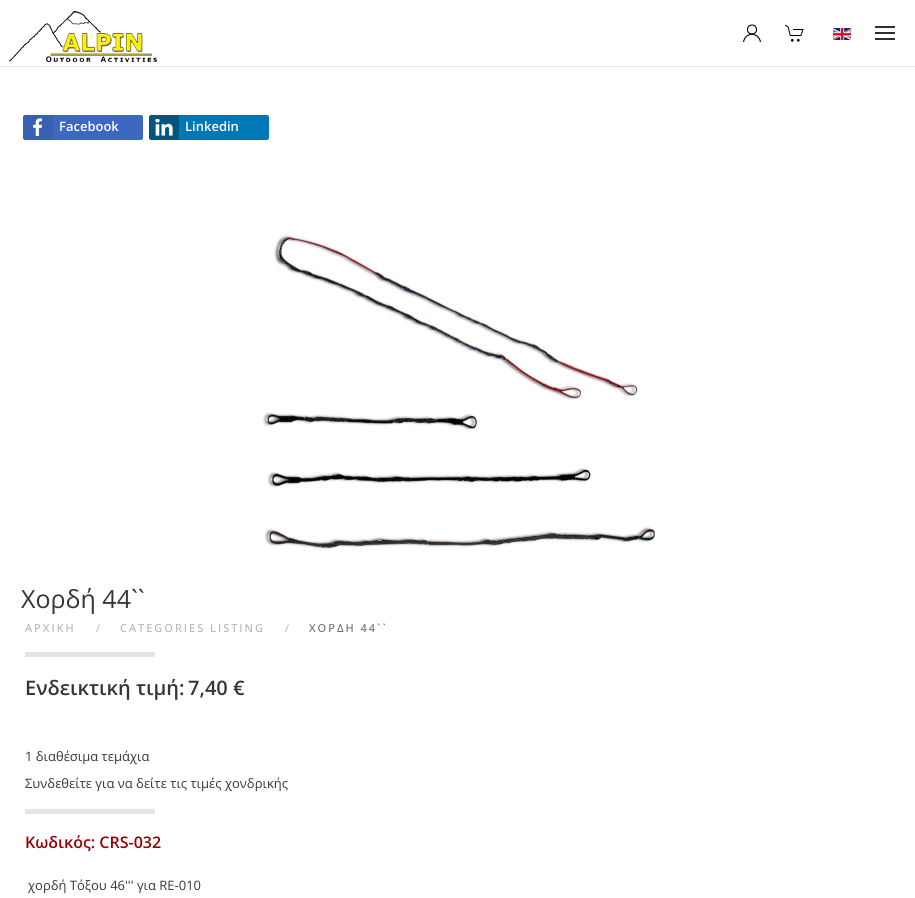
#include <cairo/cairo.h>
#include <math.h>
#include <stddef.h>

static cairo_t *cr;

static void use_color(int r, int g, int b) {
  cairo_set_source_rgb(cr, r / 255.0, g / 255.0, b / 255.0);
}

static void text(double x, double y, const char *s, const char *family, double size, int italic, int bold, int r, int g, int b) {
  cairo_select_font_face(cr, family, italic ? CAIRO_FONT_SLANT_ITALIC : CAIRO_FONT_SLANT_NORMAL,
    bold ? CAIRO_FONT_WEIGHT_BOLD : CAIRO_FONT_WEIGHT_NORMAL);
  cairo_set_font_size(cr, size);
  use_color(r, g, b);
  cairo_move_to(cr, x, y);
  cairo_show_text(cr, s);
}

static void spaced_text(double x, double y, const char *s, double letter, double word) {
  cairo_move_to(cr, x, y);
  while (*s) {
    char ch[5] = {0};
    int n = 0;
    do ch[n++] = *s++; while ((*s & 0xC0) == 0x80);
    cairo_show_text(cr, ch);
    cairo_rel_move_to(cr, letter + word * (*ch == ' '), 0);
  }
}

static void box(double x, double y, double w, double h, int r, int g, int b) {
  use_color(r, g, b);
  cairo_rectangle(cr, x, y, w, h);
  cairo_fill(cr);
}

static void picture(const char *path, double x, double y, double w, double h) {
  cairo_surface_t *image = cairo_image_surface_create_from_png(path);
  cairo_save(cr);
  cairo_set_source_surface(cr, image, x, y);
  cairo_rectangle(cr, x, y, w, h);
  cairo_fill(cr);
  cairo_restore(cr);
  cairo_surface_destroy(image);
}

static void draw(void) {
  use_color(255, 255, 255);
  cairo_paint(cr);
  box(0, 66, 915, 1, 227, 228, 231);
  picture("img_01.png", 9, 11, 148, 51);
  cairo_arc(cr, 752, 29.5, 4.5, 0, 2 * M_PI);
  use_color(0, 0, 0);
  cairo_set_line_width(cr, 1.1);
  cairo_stroke(cr);
  cairo_new_path(cr);
  cairo_move_to(cr, 743.5, 42);
  cairo_curve_to(cr, 745.5, 31.5, 758.5, 32, 760.5, 42);
  cairo_stroke(cr);
  picture("img_02.png", 785, 24, 19, 18);
  picture("img_03.png", 833, 28, 18, 12);
  box(875, 26, 20, 2, 45, 46, 51);
  box(875, 32, 20, 2, 45, 46, 51);
  box(875, 38, 20, 2, 45, 46, 51);
  use_color(57, 95, 177);
  cairo_new_path(cr);
  cairo_move_to(cr, 25, 115);
  cairo_line_to(cr, 53, 115);
  cairo_line_to(cr, 53, 140);
  cairo_line_to(cr, 25, 140);
  cairo_curve_to(cr, 24, 140, 23, 139, 23, 138);
  cairo_line_to(cr, 23, 117);
  cairo_curve_to(cr, 23, 116, 24, 115, 25, 115);
  cairo_close_path(cr);
  cairo_fill(cr);
  picture("img_04.png", 33, 118, 9, 18);
  use_color(62, 104, 192);
  cairo_new_path(cr);
  cairo_move_to(cr, 53, 115);
  cairo_line_to(cr, 141, 115);
  cairo_curve_to(cr, 142, 115, 143, 116, 143, 117);
  cairo_line_to(cr, 143, 138);
  cairo_curve_to(cr, 143, 139, 142, 140, 141, 140);
  cairo_line_to(cr, 53, 140);
  cairo_close_path(cr);
  cairo_fill(cr);
  use_color(3, 84, 126);
  cairo_new_path(cr);
  cairo_move_to(cr, 151, 115);
  cairo_line_to(cr, 179, 115);
  cairo_line_to(cr, 179, 140);
  cairo_line_to(cr, 151, 140);
  cairo_curve_to(cr, 150, 140, 149, 139, 149, 138);
  cairo_line_to(cr, 149, 117);
  cairo_curve_to(cr, 149, 116, 150, 115, 151, 115);
  cairo_close_path(cr);
  cairo_fill(cr);
  picture("img_05.png", 155, 119, 18, 17);
  use_color(0, 120, 182);
  cairo_new_path(cr);
  cairo_move_to(cr, 179, 115);
  cairo_line_to(cr, 267, 115);
  cairo_curve_to(cr, 268, 115, 269, 116, 269, 117);
  cairo_line_to(cr, 269, 138);
  cairo_curve_to(cr, 269, 139, 268, 140, 267, 140);
  cairo_line_to(cr, 179, 140);
  cairo_close_path(cr);
  cairo_fill(cr);
  picture("img_06.png", 262, 232, 395, 320);
  box(25, 652, 130, 5, 229, 229, 231);
  box(25, 809, 130, 5, 229, 229, 231);
  text(59, 131, "Facebook", "Open Sans SemiBold", 13, 0, 0, 255, 255, 255);
  text(185, 131, "Linkedin", "Open Sans SemiBold", 13, 0, 0, 255, 255, 255);
  text(21, 608, "Χορδή 44``", "Open Sans", 25, 0, 0, 57, 53, 53);
  cairo_select_font_face(cr, "Open Sans Medium", CAIRO_FONT_SLANT_NORMAL, CAIRO_FONT_WEIGHT_NORMAL);
  cairo_set_font_size(cr, 11);
  use_color(180, 181, 186);
  spaced_text(25, 632, "ΑΡΧΙΚΗ", 2, 0);
  text(96, 632, "/", "Open Sans", 11, 0, 0, 180, 181, 186);
  cairo_select_font_face(cr, "Open Sans Medium", CAIRO_FONT_SLANT_NORMAL, CAIRO_FONT_WEIGHT_NORMAL);
  spaced_text(120, 632, "CATEGORIES LISTING", 2, 0);
  text(285, 632, "/", "Open Sans", 11, 0, 0, 180, 181, 186);
  cairo_select_font_face(cr, "Open Sans Medium", CAIRO_FONT_SLANT_NORMAL, CAIRO_FONT_WEIGHT_NORMAL);
  use_color(108, 109, 116);
  spaced_text(309, 632, "ΧΟΡΔΗ 44``", 2, 0);
  text(25, 695, "Ενδεικτική τιμή:", "Open Sans SemiBold", 20, 0, 0, 57, 53, 53);
  text(188, 695, "7,40 €", "Open Sans SemiBold", 20, 0, 0, 57, 53, 53);
  text(25, 761, "1 διαθέσιμα τεμάχια", "Open Sans", 13, 0, 0, 57, 53, 53);
  text(25, 788, "Συνδεθείτε για να δείτε τις τιμές χονδρικής", "Open Sans", 13, 0, 0, 57, 53, 53);
  text(25, 848, "Κωδικός: CRS-032", "Open Sans SemiBold", 16, 0, 0, 153, 0, 0);
  text(28, 890, "χορδή Τόξου 46''' για RE-010", "Open Sans", 13, 0, 0, 57, 53, 53);
}

int main(void) {
  cairo_surface_t *surface = cairo_image_surface_create(CAIRO_FORMAT_RGB24, 915, 898);
  cr = cairo_create(surface);
  cairo_font_options_t *options = cairo_font_options_create();
  cairo_font_options_set_hint_metrics(options, CAIRO_HINT_METRICS_OFF);
  cairo_font_options_set_hint_style(options, CAIRO_HINT_STYLE_NONE);
  cairo_set_font_options(cr, options);
  cairo_set_miter_limit(cr, 4);
  draw();
  cairo_surface_write_to_png(surface, "out.png");
  cairo_font_options_destroy(options);
  cairo_destroy(cr);
  cairo_surface_destroy(surface);
  return 0;
}
